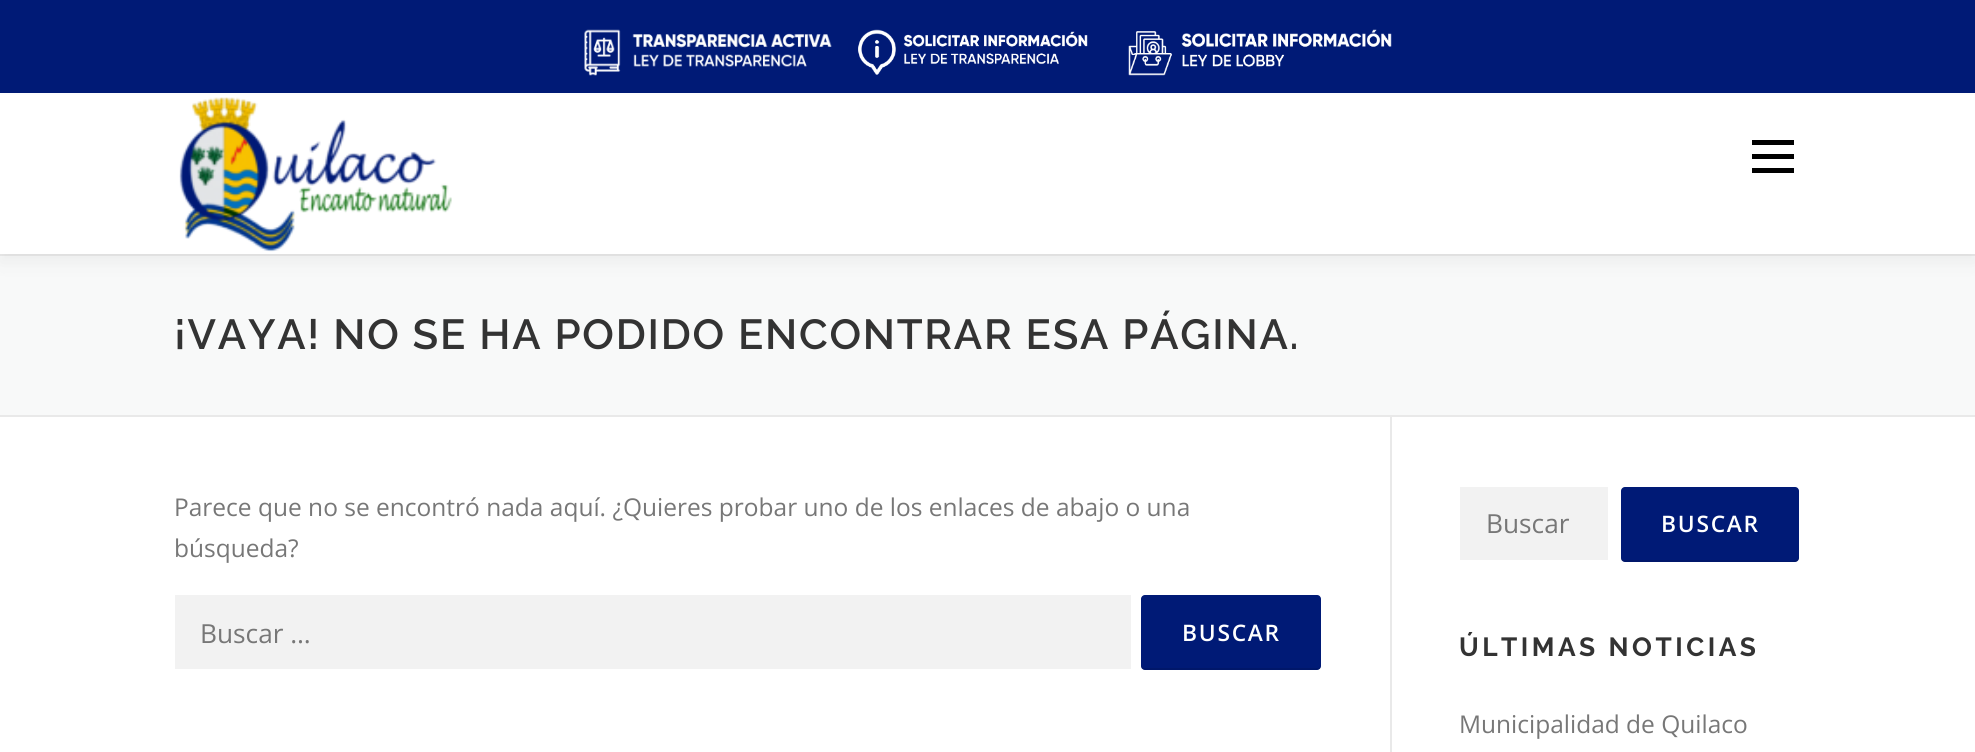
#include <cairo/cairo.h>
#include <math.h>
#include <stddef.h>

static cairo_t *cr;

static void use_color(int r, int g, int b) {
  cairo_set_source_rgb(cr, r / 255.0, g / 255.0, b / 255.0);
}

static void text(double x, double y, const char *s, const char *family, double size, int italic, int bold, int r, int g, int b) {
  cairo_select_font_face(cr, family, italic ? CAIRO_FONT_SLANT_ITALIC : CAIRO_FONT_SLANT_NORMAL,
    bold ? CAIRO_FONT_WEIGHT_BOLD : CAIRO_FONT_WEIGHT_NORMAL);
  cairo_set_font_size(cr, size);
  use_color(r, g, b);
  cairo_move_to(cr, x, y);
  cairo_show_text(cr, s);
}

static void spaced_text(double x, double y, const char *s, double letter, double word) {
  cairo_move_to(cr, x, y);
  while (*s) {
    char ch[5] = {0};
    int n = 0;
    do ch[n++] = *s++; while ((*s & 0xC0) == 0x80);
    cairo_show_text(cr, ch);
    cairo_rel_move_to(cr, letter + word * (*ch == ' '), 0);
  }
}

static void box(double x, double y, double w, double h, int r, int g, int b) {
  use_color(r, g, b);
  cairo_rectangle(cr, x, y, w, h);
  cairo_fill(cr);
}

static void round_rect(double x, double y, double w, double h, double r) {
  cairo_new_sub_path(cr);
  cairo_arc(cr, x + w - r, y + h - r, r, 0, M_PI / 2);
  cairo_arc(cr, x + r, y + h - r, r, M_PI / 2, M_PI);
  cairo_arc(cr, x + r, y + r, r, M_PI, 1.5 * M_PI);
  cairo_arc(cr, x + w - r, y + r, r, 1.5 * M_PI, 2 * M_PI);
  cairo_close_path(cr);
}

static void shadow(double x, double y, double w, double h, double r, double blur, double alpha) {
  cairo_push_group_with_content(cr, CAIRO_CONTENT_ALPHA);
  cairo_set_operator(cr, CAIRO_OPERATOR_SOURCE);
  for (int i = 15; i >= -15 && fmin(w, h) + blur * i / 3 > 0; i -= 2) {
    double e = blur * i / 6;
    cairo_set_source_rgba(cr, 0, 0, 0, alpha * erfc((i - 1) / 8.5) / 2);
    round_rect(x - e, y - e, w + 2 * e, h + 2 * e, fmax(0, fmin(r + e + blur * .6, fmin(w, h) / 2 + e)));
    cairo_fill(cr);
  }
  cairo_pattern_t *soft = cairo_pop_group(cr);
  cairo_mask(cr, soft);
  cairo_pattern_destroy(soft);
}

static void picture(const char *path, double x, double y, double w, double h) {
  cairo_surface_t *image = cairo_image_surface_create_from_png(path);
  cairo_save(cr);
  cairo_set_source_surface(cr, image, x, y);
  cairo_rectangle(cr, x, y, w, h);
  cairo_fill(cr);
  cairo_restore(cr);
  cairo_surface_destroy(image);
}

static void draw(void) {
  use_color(255, 255, 255);
  cairo_paint(cr);
  box(0, 0, 1975, 93, 0, 26, 118);
  picture("img_01.png", 584, 29, 248, 47);
  picture("img_02.png", 858, 29, 230, 46);
  picture("img_03.png", 1128, 29, 264, 47);
  box(0, 256, 1975, 159, 248, 249, 249);
  box(0, 254, 1975, 2, 233, 233, 233);
  use_color(50, 50, 50);
  shadow(0, 102, 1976, 161, 0, 9, 0.06);
  box(0, 95, 1975, 159, 255, 255, 255);
  picture("img_04.png", 179, 97, 273, 155);
  box(1752, 154, 42, 5, 0, 0, 0);
  box(1752, 140, 42, 5, 0, 0, 0);
  box(1752, 168, 42, 5, 0, 0, 0);
  box(0, 415, 1975, 2, 233, 233, 233);
  box(1390, 417, 2, 335, 233, 233, 233);
  box(175, 595, 956, 74, 242, 242, 242);
  use_color(0, 26, 118);
  round_rect(1141, 595, 180, 75, 4);
  cairo_fill(cr);
  cairo_set_source_rgba(cr, 0, 0, 0, 0.1);
  cairo_new_path(cr);
  cairo_move_to(cr, 1141, 665);
  cairo_line_to(cr, 1141, 666);
  cairo_curve_to(cr, 1141, 668, 1143, 670, 1145, 670);
  cairo_line_to(cr, 1317, 670);
  cairo_curve_to(cr, 1319, 670, 1321, 668, 1321, 666);
  cairo_line_to(cr, 1321, 665);
  cairo_curve_to(cr, 1321, 667, 1320, 668, 1318, 668);
  cairo_line_to(cr, 1144, 668);
  cairo_curve_to(cr, 1143, 668, 1141, 667, 1141, 665);
  cairo_close_path(cr);
  cairo_fill(cr);
  box(1460, 487, 148, 73, 242, 242, 242);
  use_color(0, 26, 118);
  round_rect(1621, 487, 178, 75, 4);
  cairo_fill(cr);
  cairo_set_source_rgba(cr, 0, 0, 0, 0.1);
  cairo_new_path(cr);
  cairo_move_to(cr, 1621, 559);
  cairo_curve_to(cr, 1621, 560, 1623, 562, 1625, 562);
  cairo_line_to(cr, 1795, 562);
  cairo_curve_to(cr, 1797, 562, 1799, 560, 1799, 558);
  cairo_line_to(cr, 1799, 556);
  cairo_curve_to(cr, 1799, 565, 1771, 560, 1767, 560);
  cairo_line_to(cr, 1624, 560);
  cairo_close_path(cr);
  cairo_fill(cr);
  cairo_select_font_face(cr, "Raleway SemiBold", CAIRO_FONT_SLANT_NORMAL, CAIRO_FONT_WEIGHT_NORMAL);
  cairo_set_font_size(cr, 42);
  use_color(51, 51, 51);
  spaced_text(174, 349, "¡VAYA! NO SE HA PODIDO ENCONTRAR ESA PÁGINA.", 1.75, 0);
  text(174, 516, "Parece que no se encontró nada aquí. ¿Quieres probar uno de los enlaces de abajo o una", "Open Sans", 24.5, 0, 0, 119, 119, 119);
  text(174, 557, "búsqueda?", "Open Sans", 24.5, 0, 0, 119, 119, 119);
  text(200, 643, "Buscar …", "Open Sans", 26.25, 0, 0, 119, 119, 119);
  cairo_select_font_face(cr, "Open Sans SemiBold", CAIRO_FONT_SLANT_NORMAL, CAIRO_FONT_WEIGHT_NORMAL);
  cairo_set_font_size(cr, 22.75);
  use_color(255, 255, 255);
  spaced_text(1182, 641, "BUSCAR", 1.75, 0);
  text(1486, 533, "Buscar", "Open Sans", 26.25, 0, 0, 119, 119, 119);
  cairo_select_font_face(cr, "Open Sans SemiBold", CAIRO_FONT_SLANT_NORMAL, CAIRO_FONT_WEIGHT_NORMAL);
  cairo_set_font_size(cr, 22.75);
  use_color(255, 255, 255);
  spaced_text(1661, 532, "BUSCAR", 1.75, 0);
  cairo_select_font_face(cr, "Raleway", CAIRO_FONT_SLANT_NORMAL, CAIRO_FONT_WEIGHT_BOLD);
  cairo_set_font_size(cr, 26.25);
  use_color(51, 51, 51);
  spaced_text(1459, 656, "ÚLTIMAS NOTICIAS", 3.5, 0);
  text(1459, 733, "Municipalidad de Quilaco", "Open Sans", 24.5, 0, 0, 119, 119, 119);
}

int main(void) {
  cairo_surface_t *surface = cairo_image_surface_create(CAIRO_FORMAT_RGB24, 1975, 752);
  cr = cairo_create(surface);
  cairo_font_options_t *options = cairo_font_options_create();
  cairo_font_options_set_hint_metrics(options, CAIRO_HINT_METRICS_OFF);
  cairo_font_options_set_hint_style(options, CAIRO_HINT_STYLE_NONE);
  cairo_set_font_options(cr, options);
  cairo_set_miter_limit(cr, 4);
  draw();
  cairo_surface_write_to_png(surface, "out.png");
  cairo_font_options_destroy(options);
  cairo_destroy(cr);
  cairo_surface_destroy(surface);
  return 0;
}
